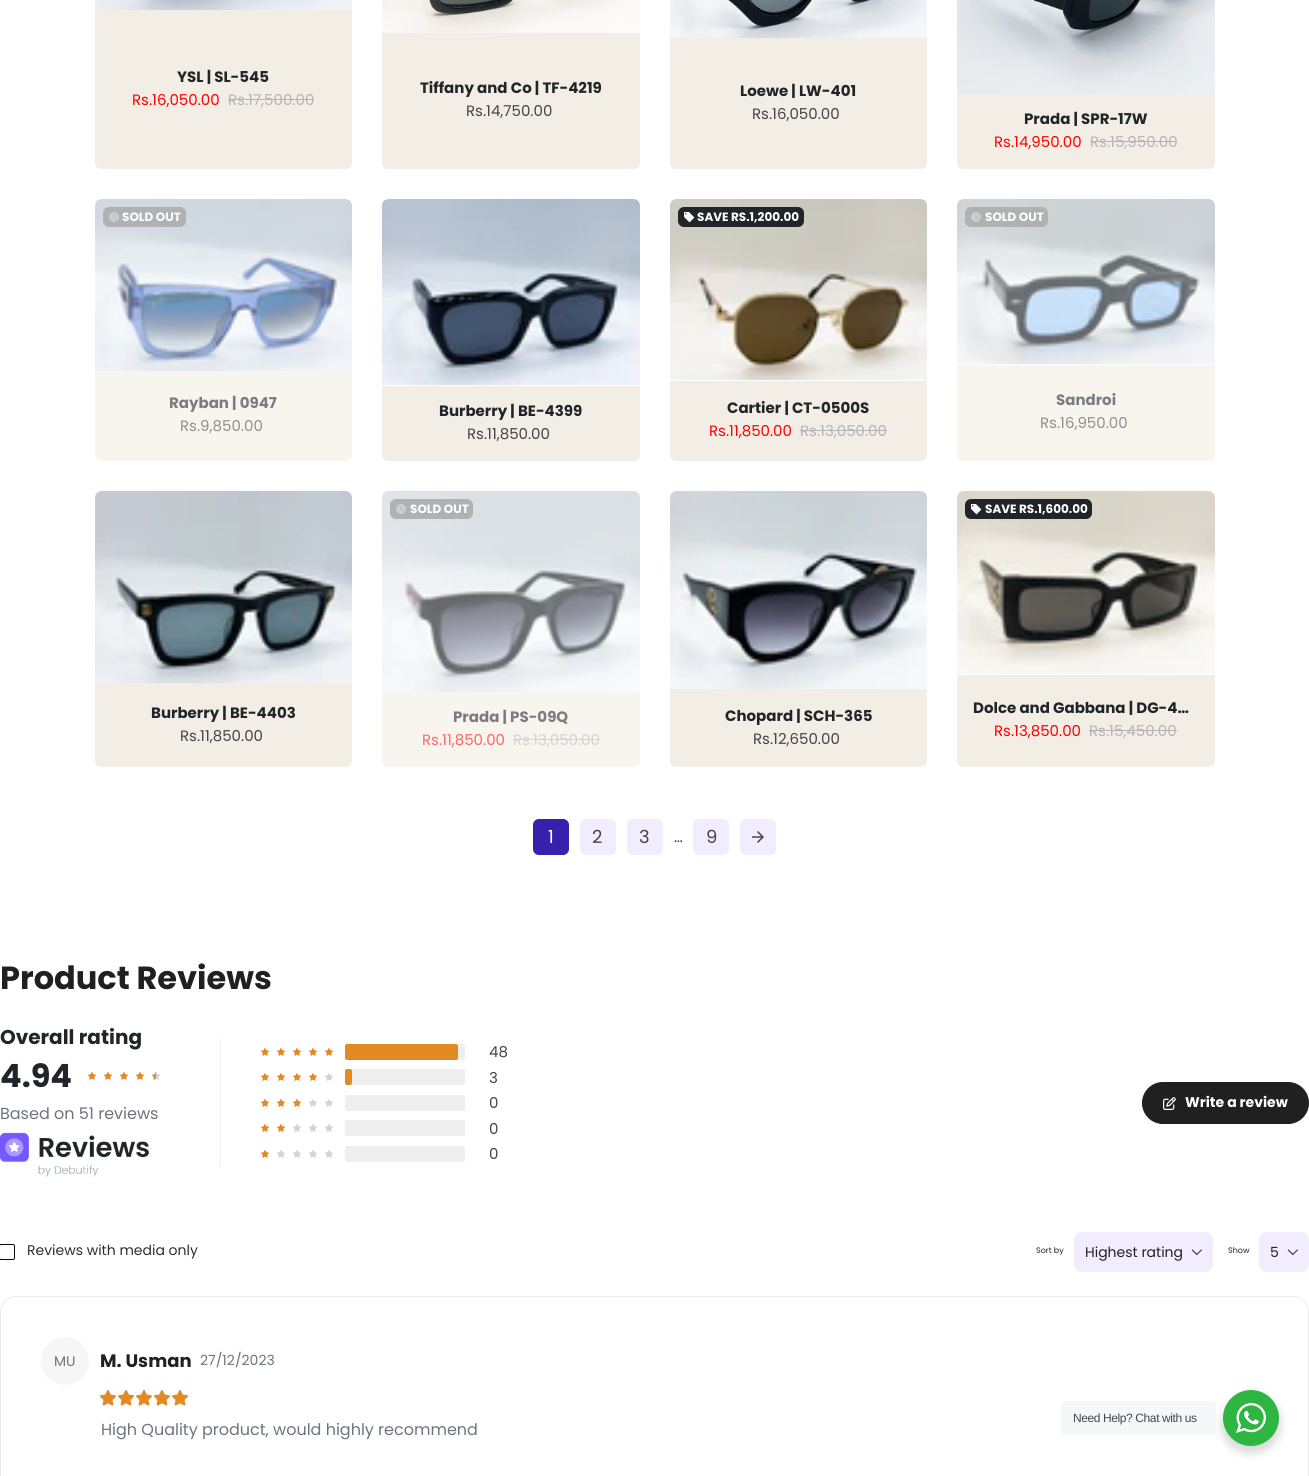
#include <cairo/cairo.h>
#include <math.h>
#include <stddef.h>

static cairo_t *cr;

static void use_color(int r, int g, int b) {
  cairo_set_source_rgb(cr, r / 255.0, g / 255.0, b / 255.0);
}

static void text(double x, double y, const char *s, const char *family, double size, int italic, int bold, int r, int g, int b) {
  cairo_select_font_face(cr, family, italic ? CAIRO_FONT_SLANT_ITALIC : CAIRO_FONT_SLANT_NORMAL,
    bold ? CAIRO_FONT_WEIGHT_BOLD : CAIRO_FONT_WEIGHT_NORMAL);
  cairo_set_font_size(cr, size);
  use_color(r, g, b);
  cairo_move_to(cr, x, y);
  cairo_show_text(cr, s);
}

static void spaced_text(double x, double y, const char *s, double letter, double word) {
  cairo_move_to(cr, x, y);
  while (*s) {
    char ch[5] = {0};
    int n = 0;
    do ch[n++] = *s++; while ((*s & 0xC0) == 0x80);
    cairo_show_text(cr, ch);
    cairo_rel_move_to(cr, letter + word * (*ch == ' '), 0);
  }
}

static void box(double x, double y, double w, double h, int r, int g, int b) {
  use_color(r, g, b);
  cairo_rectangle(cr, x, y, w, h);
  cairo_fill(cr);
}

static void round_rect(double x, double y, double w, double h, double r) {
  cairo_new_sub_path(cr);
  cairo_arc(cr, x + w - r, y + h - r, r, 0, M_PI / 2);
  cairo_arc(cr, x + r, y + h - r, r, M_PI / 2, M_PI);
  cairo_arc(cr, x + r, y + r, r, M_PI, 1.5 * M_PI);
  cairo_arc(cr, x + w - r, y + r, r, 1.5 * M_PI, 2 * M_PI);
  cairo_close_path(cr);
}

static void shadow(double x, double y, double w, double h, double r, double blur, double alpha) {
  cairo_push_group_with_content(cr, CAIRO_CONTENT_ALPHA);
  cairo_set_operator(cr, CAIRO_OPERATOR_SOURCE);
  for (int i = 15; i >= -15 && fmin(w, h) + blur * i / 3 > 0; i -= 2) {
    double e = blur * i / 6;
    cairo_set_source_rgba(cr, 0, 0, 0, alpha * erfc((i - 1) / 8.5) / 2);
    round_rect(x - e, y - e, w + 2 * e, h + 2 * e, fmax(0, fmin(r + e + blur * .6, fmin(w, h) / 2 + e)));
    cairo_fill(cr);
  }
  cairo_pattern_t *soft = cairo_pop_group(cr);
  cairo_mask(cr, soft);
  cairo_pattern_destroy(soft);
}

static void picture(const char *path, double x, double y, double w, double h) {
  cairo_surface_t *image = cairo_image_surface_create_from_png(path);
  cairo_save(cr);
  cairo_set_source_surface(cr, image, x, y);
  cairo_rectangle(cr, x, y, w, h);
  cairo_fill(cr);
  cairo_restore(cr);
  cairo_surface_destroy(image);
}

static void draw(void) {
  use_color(255, 255, 255);
  cairo_paint(cr);
  use_color(243, 238, 229);
  round_rect(95, -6, 257, 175, 6);
  cairo_fill(cr);
  picture("img_01.png", 95, 0, 257, 10);
  box(228, 99, 86, 1, 180, 180, 180);
  use_color(243, 238, 229);
  round_rect(382, -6, 258, 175, 6);
  cairo_fill(cr);
  picture("img_02.png", 382, 0, 258, 33);
  round_rect(670, -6, 257, 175, 6);
  cairo_fill(cr);
  picture("img_03.png", 670, 0, 257, 38);
  round_rect(957, -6, 258, 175, 6);
  cairo_fill(cr);
  picture("img_04.png", 957, 0, 258, 94);
  box(1090, 141, 87, 1, 180, 180, 180);
  use_color(248, 245, 239);
  round_rect(95, 199, 257, 262, 6);
  cairo_fill(cr);
  use_color(255, 255, 255);
  cairo_new_path(cr);
  cairo_move_to(cr, 101, 199);
  cairo_line_to(cr, 346, 199);
  cairo_curve_to(cr, 349.5, 199, 352, 201.5, 352, 205);
  cairo_line_to(cr, 352, 371);
  cairo_line_to(cr, 95, 371);
  cairo_line_to(cr, 95, 205);
  cairo_curve_to(cr, 95, 201.5, 97.5, 199, 101, 199);
  cairo_close_path(cr);
  cairo_fill(cr);
  picture("img_05.png", 95, 199, 257, 172);
  use_color(175, 177, 178);
  round_rect(103, 207, 83, 20, 6);
  cairo_fill(cr);
  picture("img_06.png", 109, 212, 10, 10);
  use_color(243, 238, 229);
  round_rect(382, 199, 258, 262, 6);
  cairo_fill(cr);
  use_color(255, 255, 255);
  cairo_new_path(cr);
  cairo_move_to(cr, 388, 199);
  cairo_line_to(cr, 634, 199);
  cairo_curve_to(cr, 637.5, 199, 640, 201.5, 640, 205);
  cairo_line_to(cr, 640, 386);
  cairo_line_to(cr, 382, 386);
  cairo_line_to(cr, 382, 205);
  cairo_curve_to(cr, 382, 201.5, 384.5, 199, 388, 199);
  cairo_close_path(cr);
  cairo_fill(cr);
  cairo_new_path(cr);
  cairo_move_to(cr, 388, 199);
  cairo_line_to(cr, 634, 199);
  cairo_curve_to(cr, 637.5, 199, 640, 201.5, 640, 205);
  cairo_line_to(cr, 640, 385);
  cairo_line_to(cr, 382, 385);
  cairo_line_to(cr, 382, 205);
  cairo_curve_to(cr, 382, 201.5, 384.5, 199, 388, 199);
  cairo_close_path(cr);
  cairo_fill(cr);
  picture("img_07.png", 382, 199, 258, 186);
  use_color(243, 238, 229);
  round_rect(670, 199, 257, 262, 6);
  cairo_fill(cr);
  use_color(255, 255, 255);
  cairo_new_path(cr);
  cairo_move_to(cr, 676, 199);
  cairo_line_to(cr, 921, 199);
  cairo_curve_to(cr, 924.5, 199, 927, 201.5, 927, 205);
  cairo_line_to(cr, 927, 381);
  cairo_line_to(cr, 670, 381);
  cairo_line_to(cr, 670, 205);
  cairo_curve_to(cr, 670, 201.5, 672.5, 199, 676, 199);
  cairo_close_path(cr);
  cairo_fill(cr);
  cairo_new_path(cr);
  cairo_move_to(cr, 676, 199);
  cairo_line_to(cr, 921, 199);
  cairo_curve_to(cr, 924.5, 199, 927, 201.5, 927, 205);
  cairo_line_to(cr, 927, 380);
  cairo_line_to(cr, 670, 380);
  cairo_line_to(cr, 670, 205);
  cairo_curve_to(cr, 670, 201.5, 672.5, 199, 676, 199);
  cairo_close_path(cr);
  cairo_fill(cr);
  picture("img_08.png", 670, 199, 257, 181);
  use_color(33, 37, 41);
  round_rect(678, 207, 126, 20, 6);
  cairo_fill(cr);
  picture("img_09.png", 684, 212, 11, 11);
  box(800, 430, 87, 1, 180, 180, 180);
  use_color(248, 245, 239);
  round_rect(957, 199, 258, 262, 6);
  cairo_fill(cr);
  use_color(255, 255, 255);
  cairo_new_path(cr);
  cairo_move_to(cr, 963, 199);
  cairo_line_to(cr, 1209, 199);
  cairo_curve_to(cr, 1212.5, 199, 1215, 201.5, 1215, 205);
  cairo_line_to(cr, 1215, 365);
  cairo_line_to(cr, 957, 365);
  cairo_line_to(cr, 957, 205);
  cairo_curve_to(cr, 957, 201.5, 959.5, 199, 963, 199);
  cairo_close_path(cr);
  cairo_fill(cr);
  picture("img_10.png", 957, 199, 258, 165);
  use_color(175, 177, 178);
  round_rect(965, 207, 83, 20, 6);
  cairo_fill(cr);
  picture("img_06.png", 971, 212, 10, 10);
  use_color(243, 238, 229);
  round_rect(95, 491, 257, 276, 6);
  cairo_fill(cr);
  use_color(255, 255, 255);
  cairo_new_path(cr);
  cairo_move_to(cr, 101, 491);
  cairo_line_to(cr, 346, 491);
  cairo_curve_to(cr, 349.5, 491, 352, 493.5, 352, 497);
  cairo_line_to(cr, 352, 683);
  cairo_line_to(cr, 95, 683);
  cairo_line_to(cr, 95, 497);
  cairo_curve_to(cr, 95, 493.5, 97.5, 491, 101, 491);
  cairo_close_path(cr);
  cairo_fill(cr);
  picture("img_11.png", 95, 491, 257, 192);
  use_color(248, 245, 239);
  round_rect(382, 491, 258, 276, 6);
  cairo_fill(cr);
  use_color(255, 255, 255);
  cairo_new_path(cr);
  cairo_move_to(cr, 388, 491);
  cairo_line_to(cr, 634, 491);
  cairo_curve_to(cr, 637.5, 491, 640, 493.5, 640, 497);
  cairo_line_to(cr, 640, 692);
  cairo_line_to(cr, 382, 692);
  cairo_line_to(cr, 382, 497);
  cairo_curve_to(cr, 382, 493.5, 384.5, 491, 388, 491);
  cairo_close_path(cr);
  cairo_fill(cr);
  picture("img_12.png", 382, 491, 258, 201);
  use_color(175, 177, 178);
  round_rect(390, 499, 83, 20, 6);
  cairo_fill(cr);
  picture("img_06.png", 396, 504, 10, 10);
  box(513, 739, 87, 1, 210, 210, 210);
  use_color(243, 238, 229);
  round_rect(670, 491, 257, 276, 6);
  cairo_fill(cr);
  use_color(255, 255, 255);
  cairo_new_path(cr);
  cairo_move_to(cr, 676, 491);
  cairo_line_to(cr, 921, 491);
  cairo_curve_to(cr, 924.5, 491, 927, 493.5, 927, 497);
  cairo_line_to(cr, 927, 689);
  cairo_line_to(cr, 670, 689);
  cairo_line_to(cr, 670, 497);
  cairo_curve_to(cr, 670, 493.5, 672.5, 491, 676, 491);
  cairo_close_path(cr);
  cairo_fill(cr);
  picture("img_13.png", 670, 491, 257, 198);
  use_color(243, 238, 229);
  round_rect(957, 491, 258, 276, 6);
  cairo_fill(cr);
  use_color(255, 255, 255);
  cairo_new_path(cr);
  cairo_move_to(cr, 963, 491);
  cairo_line_to(cr, 1209, 491);
  cairo_curve_to(cr, 1212.5, 491, 1215, 493.5, 1215, 497);
  cairo_line_to(cr, 1215, 675);
  cairo_line_to(cr, 957, 675);
  cairo_line_to(cr, 957, 497);
  cairo_curve_to(cr, 957, 493.5, 959.5, 491, 963, 491);
  cairo_close_path(cr);
  cairo_fill(cr);
  cairo_new_path(cr);
  cairo_move_to(cr, 963, 491);
  cairo_line_to(cr, 1209, 491);
  cairo_curve_to(cr, 1212.5, 491, 1215, 493.5, 1215, 497);
  cairo_line_to(cr, 1215, 674);
  cairo_line_to(cr, 957, 674);
  cairo_line_to(cr, 957, 497);
  cairo_curve_to(cr, 957, 493.5, 959.5, 491, 963, 491);
  cairo_close_path(cr);
  cairo_fill(cr);
  picture("img_14.png", 957, 491, 258, 183);
  use_color(33, 37, 41);
  round_rect(965, 499, 127, 20, 6);
  cairo_fill(cr);
  picture("img_09.png", 971, 504, 11, 11);
  box(1089, 730, 88, 1, 180, 180, 180);
  use_color(54, 32, 172);
  round_rect(533.5, 819.5, 35, 35, 5.5);
  cairo_fill_preserve(cr);
  cairo_set_line_width(cr, 1);
  cairo_stroke(cr);
  use_color(242, 236, 255);
  round_rect(580.5, 819.5, 35, 35, 5.5);
  cairo_fill_preserve(cr);
  cairo_stroke(cr);
  round_rect(627.5, 819.5, 35, 35, 5.5);
  cairo_fill_preserve(cr);
  cairo_stroke(cr);
  round_rect(693.5, 819.5, 35, 35, 5.5);
  cairo_fill_preserve(cr);
  cairo_stroke(cr);
  round_rect(740.5, 819.5, 35, 35, 5.5);
  cairo_fill_preserve(cr);
  cairo_stroke(cr);
  picture("img_15.png", 752, 831, 12, 12);
  picture("img_16.png", 88, 1072, 8, 8);
  picture("img_16.png", 104, 1072, 8, 8);
  picture("img_16.png", 120, 1072, 8, 8);
  picture("img_16.png", 136, 1072, 8, 8);
  picture("img_17.png", 152, 1072, 8, 8);
  picture("img_18.png", 0, 1132, 150, 45);
  box(220, 1039, 1, 128, 240, 240, 240);
  picture("img_16.png", 261, 1048, 8, 8);
  picture("img_16.png", 277, 1048, 8, 8);
  picture("img_16.png", 293, 1048, 8, 8);
  picture("img_16.png", 309, 1048, 8, 8);
  picture("img_16.png", 325, 1048, 8, 8);
  use_color(239, 239, 239);
  round_rect(345, 1044, 120, 16, 2);
  cairo_fill(cr);
  use_color(226, 139, 37);
  round_rect(345, 1044, 113, 16, 2);
  cairo_fill(cr);
  picture("img_16.png", 261, 1073, 8, 8);
  picture("img_16.png", 277, 1073, 8, 8);
  picture("img_16.png", 293, 1073, 8, 8);
  picture("img_16.png", 309, 1073, 8, 8);
  picture("img_19.png", 325, 1073, 8, 8);
  use_color(239, 239, 239);
  round_rect(345, 1069, 120, 16, 2);
  cairo_fill(cr);
  use_color(226, 139, 37);
  round_rect(345, 1069, 7, 16, 2);
  cairo_fill(cr);
  picture("img_16.png", 261, 1099, 8, 8);
  picture("img_16.png", 277, 1099, 8, 8);
  picture("img_16.png", 293, 1099, 8, 8);
  picture("img_19.png", 309, 1099, 8, 8);
  picture("img_19.png", 325, 1099, 8, 8);
  use_color(239, 239, 239);
  round_rect(345, 1095, 120, 16, 2);
  cairo_fill(cr);
  picture("img_16.png", 261, 1124, 8, 8);
  picture("img_16.png", 277, 1124, 8, 8);
  picture("img_19.png", 293, 1124, 8, 8);
  picture("img_19.png", 309, 1124, 8, 8);
  picture("img_19.png", 325, 1124, 8, 8);
  round_rect(345, 1120, 120, 16, 2);
  cairo_fill(cr);
  picture("img_16.png", 261, 1150, 8, 8);
  picture("img_19.png", 277, 1150, 8, 8);
  picture("img_19.png", 293, 1150, 8, 8);
  picture("img_19.png", 309, 1150, 8, 8);
  picture("img_19.png", 325, 1150, 8, 8);
  round_rect(345, 1146, 120, 16, 2);
  cairo_fill(cr);
  use_color(32, 32, 32);
  round_rect(1142.5, 1082.5, 166, 41, 20.5);
  cairo_fill_preserve(cr);
  cairo_stroke(cr);
  picture("img_20.png", 1163, 1097, 13, 13);
  round_rect(-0.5, 1244.5, 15, 15, 1.5);
  use_color(8, 8, 8);
  cairo_stroke(cr);
  use_color(242, 236, 255);
  round_rect(1074.5, 1232.5, 138, 39, 7.5);
  cairo_fill_preserve(cr);
  cairo_stroke(cr);
  picture("img_21.png", 1191, 1249, 11, 6);
  round_rect(1259.5, 1232.5, 49, 39, 7.5);
  cairo_fill_preserve(cr);
  cairo_stroke(cr);
  picture("img_21.png", 1287, 1249, 11, 6);
  round_rect(0.5, 1296.5, 1308, 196, 15.5);
  use_color(236, 236, 236);
  cairo_stroke(cr);
  use_color(246, 246, 246);
  cairo_arc(cr, 65, 1361, 24, 0, 2 * M_PI);
  cairo_fill(cr);
  picture("img_22.png", 100, 1390, 16, 16);
  picture("img_22.png", 118, 1390, 16, 16);
  picture("img_22.png", 136, 1390, 16, 16);
  picture("img_22.png", 154, 1390, 16, 16);
  picture("img_22.png", 172, 1390, 16, 16);
  use_color(0, 0, 0);
  shadow(1221, 1394, 60, 60, 30, 4, 0.14);
  use_color(245, 247, 249);
  round_rect(1061, 1401, 155, 34, 4);
  cairo_fill(cr);
  use_color(45, 183, 66);
  cairo_arc(cr, 1251, 1418, 28, 0, 2 * M_PI);
  cairo_fill(cr);
  picture("img_23.png", 1236, 1403, 30, 30);
  text(177, 82, "YSL | SL-545", "Poppins", 15, 0, 1, 33, 37, 41);
  text(132, 105, "Rs.16,050.00", "Poppins", 15, 0, 0, 255, 0, 0);
  text(228, 105, "Rs.17,500.00", "Poppins", 15, 0, 0, 180, 180, 180);
  text(420, 93, "Tiffany and Co | TF-4219", "Poppins", 15, 0, 1, 33, 37, 41);
  text(466, 116, "Rs.14,750.00", "Poppins", 15, 0, 0, 68, 68, 68);
  text(740, 96, "Loewe | LW-401", "Poppins", 15, 0, 1, 33, 37, 41);
  text(752, 119, "Rs.16,050.00", "Poppins", 15, 0, 0, 68, 68, 68);
  text(1024, 124, "Prada | SPR-17W", "Poppins", 15, 0, 1, 33, 37, 41);
  text(994, 147, "Rs.14,950.00", "Poppins", 15, 0, 0, 255, 0, 0);
  text(1090, 147, "Rs.15,950.00", "Poppins", 15, 0, 0, 180, 180, 180);
  text(122, 221, "SOLD OUT", "Poppins", 12, 0, 1, 255, 255, 255);
  text(169, 408, "Rayban | 0947", "Poppins", 15, 0, 1, 122, 124, 127);
  text(180, 431, "Rs.9,850.00", "Poppins", 15, 0, 0, 143, 143, 143);
  text(439, 416, "Burberry | BE-4399", "Poppins", 15, 0, 1, 33, 37, 41);
  text(467, 439, "Rs.11,850.00", "Poppins", 15, 0, 0, 68, 68, 68);
  text(697, 221, "SAVE RS.1,200.00", "Poppins", 12, 0, 1, 255, 255, 255);
  text(727, 413, "Cartier | CT-0500S", "Poppins", 15, 0, 1, 33, 37, 41);
  text(709, 436, "Rs.11,850.00", "Poppins", 15, 0, 0, 255, 0, 0);
  text(800, 436, "Rs.13,050.00", "Poppins", 15, 0, 0, 180, 180, 180);
  text(985, 221, "SOLD OUT", "Poppins", 12, 0, 1, 255, 255, 255);
  text(1056, 405, "Sandroi", "Poppins", 15, 0, 1, 122, 124, 127);
  text(1040, 428, "Rs.16,950.00", "Poppins", 15, 0, 0, 143, 143, 143);
  text(151, 718, "Burberry | BE-4403", "Poppins", 15, 0, 1, 33, 37, 41);
  text(180, 741, "Rs.11,850.00", "Poppins", 15, 0, 0, 68, 68, 68);
  text(410, 513, "SOLD OUT", "Poppins", 12, 0, 1, 255, 255, 255);
  text(453, 722, "Prada | PS-09Q", "Poppins", 15, 0, 1, 122, 124, 127);
  text(422, 745, "Rs.11,850.00", "Poppins", 15, 0, 0, 255, 102, 102);
  text(513, 745, "Rs.13,050.00", "Poppins", 15, 0, 0, 210, 210, 210);
  text(725, 721, "Chopard | SCH-365", "Poppins", 15, 0, 1, 33, 37, 41);
  text(753, 744, "Rs.12,650.00", "Poppins", 15, 0, 0, 68, 68, 68);
  text(985, 513, "SAVE RS.1,600.00", "Poppins", 12, 0, 1, 255, 255, 255);
  text(973, 713, "Dolce and Gabbana | DG-4…", "Poppins", 15, 0, 1, 33, 37, 41);
  text(994, 736, "Rs.13,850.00", "Poppins", 15, 0, 0, 255, 0, 0);
  text(1089, 736, "Rs.15,450.00", "Poppins", 15, 0, 0, 180, 180, 180);
  text(548, 843, "1", "Poppins", 18, 0, 0, 255, 255, 255);
  text(592, 843, "2", "Poppins", 18, 0, 0, 68, 68, 68);
  text(639, 843, "3", "Poppins", 18, 0, 0, 68, 68, 68);
  text(674, 842, "…", "Poppins", 15, 0, 0, 68, 68, 68);
  text(706, 843, "9", "Poppins", 18, 0, 0, 68, 68, 68);
  text(0, 989, "Product Reviews", "Poppins", 32, 0, 1, 32, 32, 32);
  text(0, 1044, "Overall rating", "Poppins", 20, 0, 1, 33, 37, 41);
  text(0, 1087, "4.94", "Poppins", 32, 0, 1, 33, 37, 41);
  text(0, 1119, "Based on 51 reviews", "Poppins", 16, 0, 0, 108, 117, 125);
  text(489, 1057, "48", "Poppins", 15, 0, 0, 68, 68, 68);
  text(489, 1083, "3", "Poppins", 15, 0, 0, 68, 68, 68);
  text(489, 1108, "0", "Poppins", 15, 0, 0, 68, 68, 68);
  text(489, 1134, "0", "Poppins", 15, 0, 0, 68, 68, 68);
  text(489, 1159, "0", "Poppins", 15, 0, 0, 68, 68, 68);
  text(1185, 1107, "Write a review", "Poppins", 14, 0, 1, 255, 255, 255);
  text(27, 1255, "Reviews with media only", "Poppins", 14, 0, 0, 47, 47, 47);
  text(1036, 1253, "Sort by", "Poppins", 8, 0, 0, 32, 32, 32);
  text(1085, 1257, "Highest rating", "Poppins", 14, 0, 0, 32, 32, 32);
  text(1228, 1253, "Show", "Poppins", 8, 0, 0, 32, 32, 32);
  text(1270, 1257, "5", "Poppins", 14, 0, 0, 32, 32, 32);
  text(54, 1366, "MU", "Poppins", 14, 0, 0, 108, 117, 125);
  text(100, 1367, "M. Usman", "Poppins", 18, 0, 1, 32, 32, 32);
  text(200, 1365, "27/12/2023", "Poppins", 14, 0, 0, 108, 117, 125);
  text(101, 1435, "High Quality product, would highly recommend", "Poppins", 16, 0, 0, 108, 117, 125);
  cairo_select_font_face(cr, "Liberation Sans", CAIRO_FONT_SLANT_NORMAL, CAIRO_FONT_WEIGHT_NORMAL);
  cairo_set_font_size(cr, 12);
  use_color(67, 71, 78);
  spaced_text(1073, 1422, "Need Help? Chat with us", -0.4, 0);
}

int main(void) {
  cairo_surface_t *surface = cairo_image_surface_create(CAIRO_FORMAT_RGB24, 1309, 1476);
  cr = cairo_create(surface);
  cairo_font_options_t *options = cairo_font_options_create();
  cairo_font_options_set_hint_metrics(options, CAIRO_HINT_METRICS_OFF);
  cairo_font_options_set_hint_style(options, CAIRO_HINT_STYLE_NONE);
  cairo_set_font_options(cr, options);
  cairo_set_miter_limit(cr, 4);
  draw();
  cairo_surface_write_to_png(surface, "out.png");
  cairo_font_options_destroy(options);
  cairo_destroy(cr);
  cairo_surface_destroy(surface);
  return 0;
}
